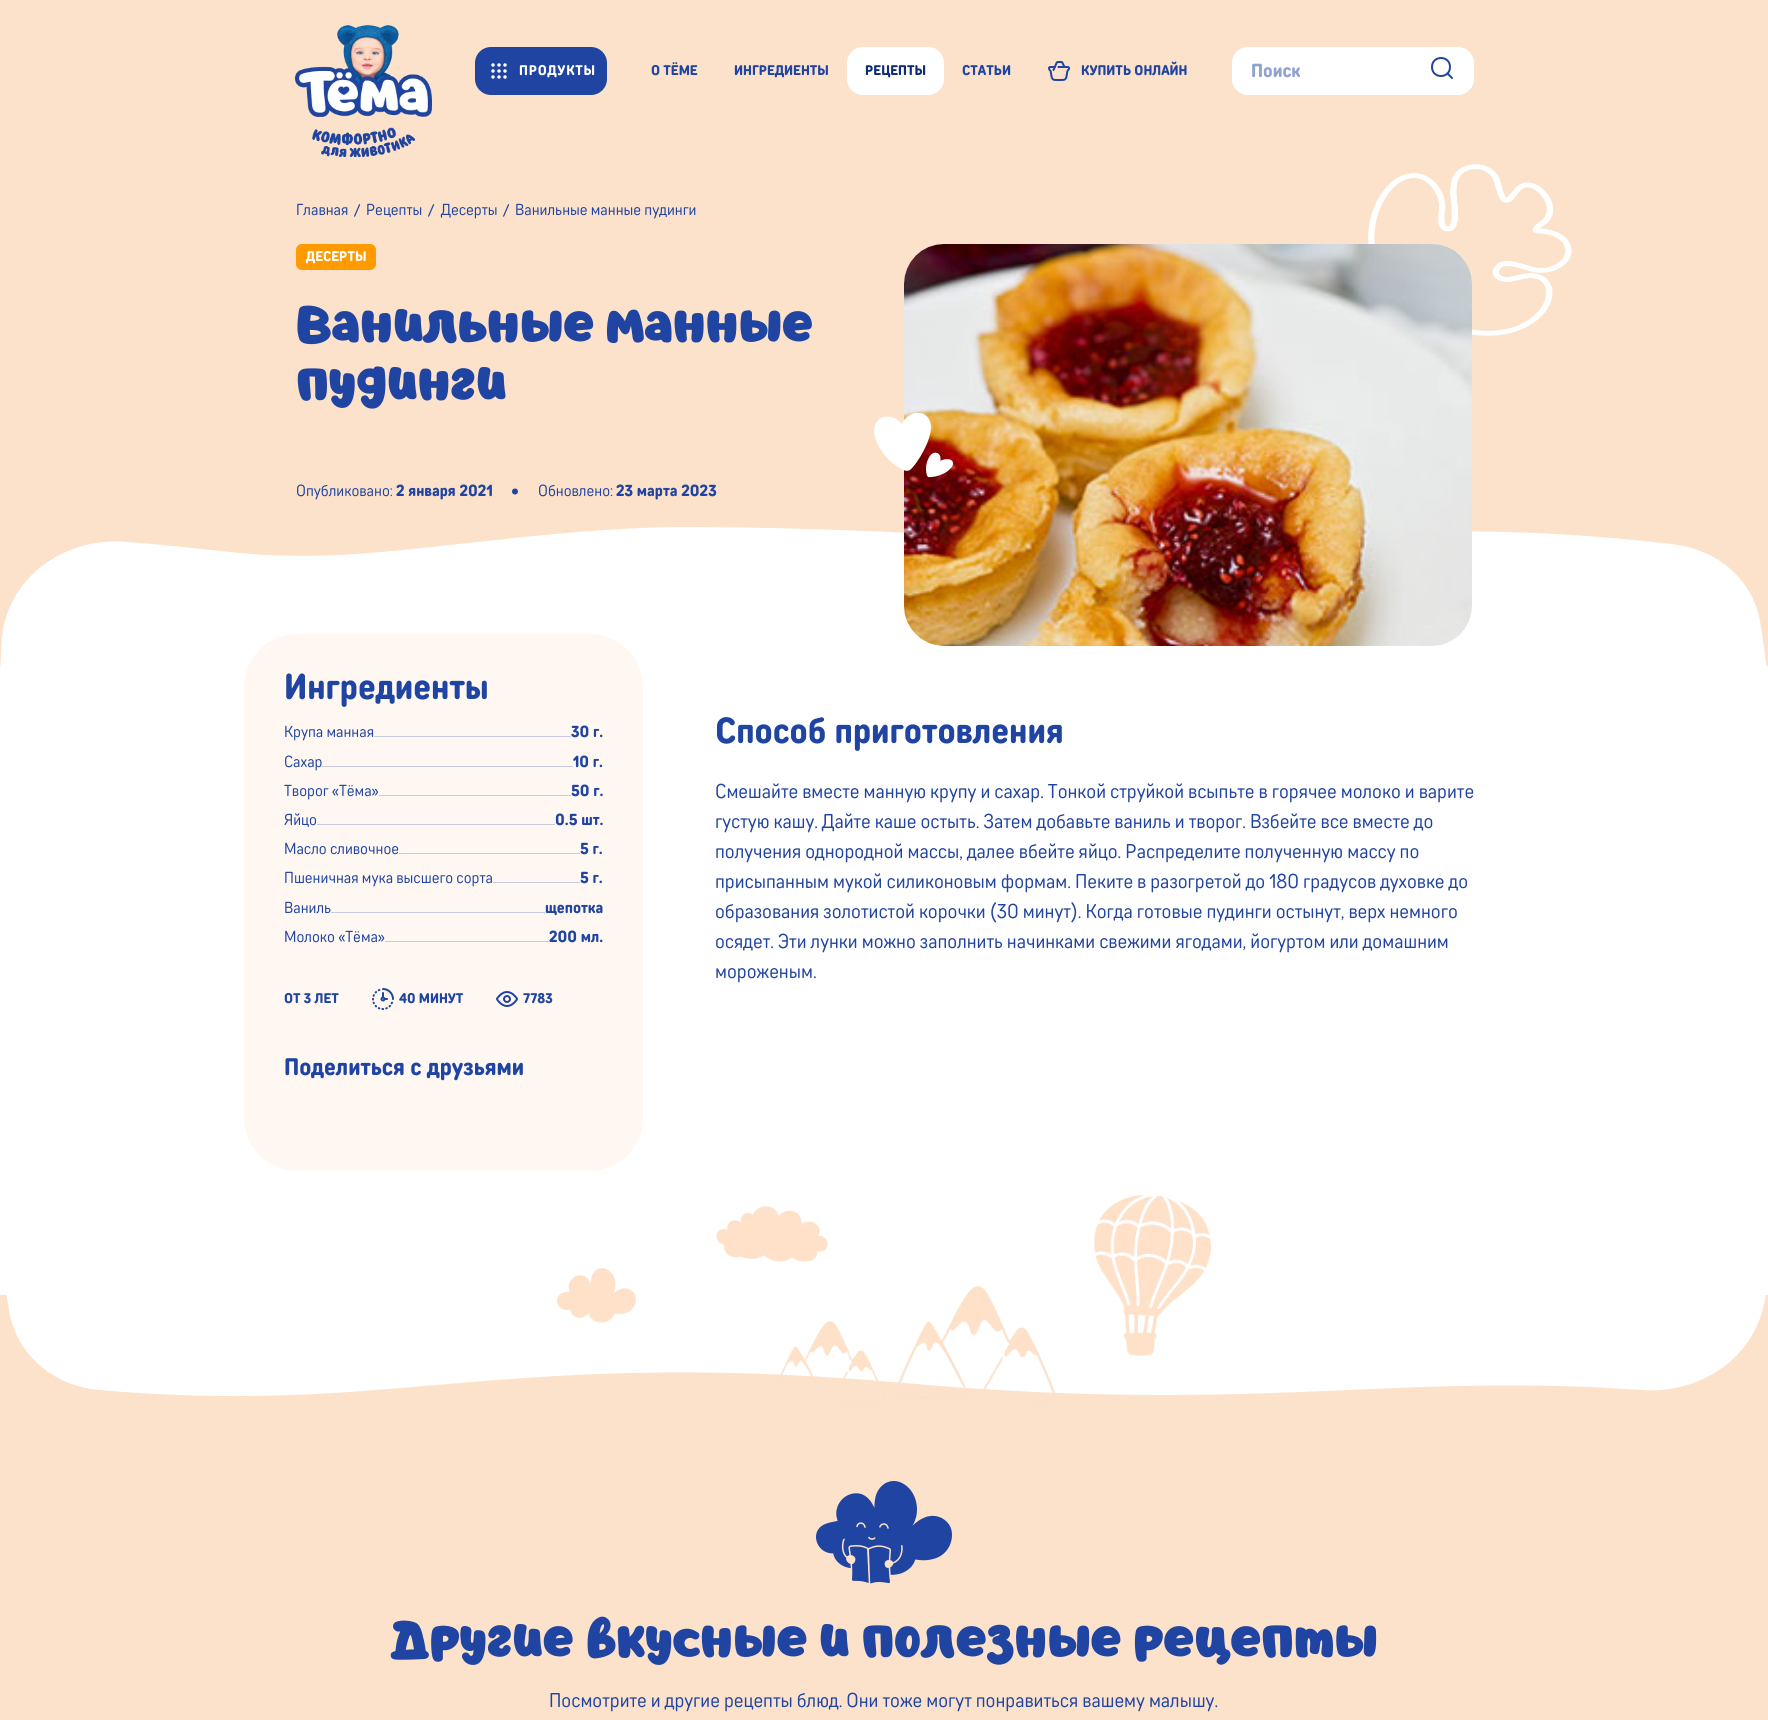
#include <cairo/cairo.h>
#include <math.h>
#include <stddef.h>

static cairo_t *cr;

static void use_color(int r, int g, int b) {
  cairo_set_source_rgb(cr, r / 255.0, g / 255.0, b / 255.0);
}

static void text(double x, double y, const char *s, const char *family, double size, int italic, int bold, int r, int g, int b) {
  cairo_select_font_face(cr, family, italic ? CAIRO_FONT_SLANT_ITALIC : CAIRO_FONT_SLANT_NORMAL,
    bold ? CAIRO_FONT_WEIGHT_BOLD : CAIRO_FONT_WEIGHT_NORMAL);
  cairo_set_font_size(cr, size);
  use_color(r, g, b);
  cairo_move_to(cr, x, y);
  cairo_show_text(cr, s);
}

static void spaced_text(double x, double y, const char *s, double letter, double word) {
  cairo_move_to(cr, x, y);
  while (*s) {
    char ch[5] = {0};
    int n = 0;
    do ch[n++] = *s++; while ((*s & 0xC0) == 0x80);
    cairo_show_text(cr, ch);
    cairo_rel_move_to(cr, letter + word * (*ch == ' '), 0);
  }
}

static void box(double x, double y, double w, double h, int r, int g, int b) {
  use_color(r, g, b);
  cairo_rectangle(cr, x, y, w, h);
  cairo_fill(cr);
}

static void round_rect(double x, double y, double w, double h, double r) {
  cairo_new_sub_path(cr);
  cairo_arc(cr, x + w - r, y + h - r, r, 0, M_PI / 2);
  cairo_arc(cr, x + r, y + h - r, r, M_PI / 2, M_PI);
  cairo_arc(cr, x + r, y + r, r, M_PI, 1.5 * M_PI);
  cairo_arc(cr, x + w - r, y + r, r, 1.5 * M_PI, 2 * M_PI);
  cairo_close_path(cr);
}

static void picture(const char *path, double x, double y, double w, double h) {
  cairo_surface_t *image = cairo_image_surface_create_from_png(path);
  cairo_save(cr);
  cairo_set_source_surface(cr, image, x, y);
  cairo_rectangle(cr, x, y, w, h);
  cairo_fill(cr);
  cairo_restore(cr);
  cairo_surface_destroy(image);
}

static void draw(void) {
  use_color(252, 226, 202);
  cairo_paint(cr);
  picture("img_01.png", 295, 25, 137, 92);
  picture("img_02.png", 312, 127, 103, 30);
  use_color(32, 68, 161);
  round_rect(475, 47, 132, 48, 16);
  cairo_fill(cr);
  picture("img_03.png", 491, 63, 16, 16);
  use_color(255, 255, 255);
  round_rect(847, 47, 97, 48, 16);
  cairo_fill(cr);
  picture("img_04.png", 1048, 61, 22, 20);
  round_rect(1232, 47, 242, 48, 16);
  cairo_fill(cr);
  cairo_new_path(cr);
  cairo_move_to(cr, 1447.5, 73.5);
  cairo_line_to(cr, 1452, 78);
  use_color(32, 68, 161);
  cairo_set_line_cap(cr, CAIRO_LINE_CAP_ROUND);
  cairo_set_line_join(cr, CAIRO_LINE_JOIN_ROUND);
  cairo_stroke(cr);
  cairo_new_path(cr);
  cairo_move_to(cr, 1450, 67);
  cairo_curve_to(cr, 1450, 55, 1432, 55, 1432, 67);
  cairo_curve_to(cr, 1432, 79, 1450, 79, 1450, 67);
  cairo_close_path(cr);
  cairo_set_line_cap(cr, CAIRO_LINE_CAP_BUTT);
  cairo_stroke(cr);
  picture("img_05.png", 354, 204, 7, 13);
  picture("img_05.png", 428, 204, 7, 13);
  picture("img_05.png", 503, 204, 7, 13);
  picture("img_06.png", 1368, 164, 204, 172);
  use_color(255, 154, 0);
  round_rect(296, 244, 80, 26, 6);
  cairo_fill(cr);
  use_color(32, 68, 161);
  cairo_arc(cr, 515, 491.5, 3, 0, 2 * M_PI);
  cairo_fill(cr);
  picture("img_09.png", 0, 527, 1767, 139);
  picture("img_07.png", 904, 244, 568, 402);
  picture("img_08.png", 874, 413, 79, 65);
  box(0, 666, 1768, 629, 255, 255, 255);
  use_color(255, 248, 242);
  round_rect(244, 634, 399, 537, 53);
  cairo_fill(cr);
  box(374, 736, 197, 1, 199, 203, 222);
  box(322, 766, 251, 1, 199, 203, 222);
  box(379, 795, 192, 1, 199, 203, 222);
  box(317, 824, 238, 1, 199, 203, 222);
  box(399, 853, 181, 1, 199, 203, 222);
  box(493, 882, 87, 1, 199, 203, 222);
  box(331, 912, 214, 1, 199, 203, 222);
  box(385, 941, 164, 1, 199, 203, 222);
  picture("img_10.png", 372, 988, 22, 22);
  picture("img_11.png", 496, 991, 22, 16);
  cairo_save(cr);
  cairo_rectangle(cr, 0, 1242, 1768, 155);
  cairo_clip(cr);
  use_color(255, 255, 255);
  cairo_set_fill_rule(cr, CAIRO_FILL_RULE_EVEN_ODD);
  cairo_new_path(cr);
  cairo_move_to(cr, 1768, 1073);
  cairo_line_to(cr, 1768, 1240);
  cairo_line_to(cr, 1766, 1289);
  cairo_curve_to(cr, 1762, 1353, 1704, 1395, 1640, 1390);
  cairo_curve_to(cr, 1528, 1382, 1441, 1386, 1349, 1390);
  cairo_curve_to(cr, 1230, 1395, 1101, 1401, 893, 1382);
  cairo_curve_to(cr, 682, 1364, 555, 1375, 436, 1385);
  cairo_curve_to(cr, 333, 1394, 237, 1402, 99, 1390);
  cairo_curve_to(cr, 54, 1386, 16, 1355, 9, 1310);
  cairo_curve_to(cr, 4, 1280, 0, 1241, 0, 1195);
  cairo_line_to(cr, 1, 772);
  cairo_line_to(cr, 1767, 772);
  cairo_curve_to(cr, 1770, 872, 1766, 972, 1768, 1073);
  cairo_close_path(cr);
  cairo_fill(cr);
  cairo_restore(cr);
  picture("img_12.png", 557, 1195, 654, 210);
  picture("img_13.png", 816, 1481, 136, 103);
  cairo_select_font_face(cr, "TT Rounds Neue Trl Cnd", CAIRO_FONT_SLANT_NORMAL, CAIRO_FONT_WEIGHT_BOLD);
  cairo_set_font_size(cr, 14);
  use_color(255, 255, 255);
  spaced_text(519, 75, "ПРОДУКТЫ", 0.75, 0);
  text(651, 75, "О ТЁМЕ", "TT Rounds Neue Trl Cnd", 14, 0, 1, 32, 68, 161);
  text(734, 75, "ИНГРЕДИЕНТЫ", "TT Rounds Neue Trl Cnd", 14, 0, 1, 32, 68, 161);
  text(865, 75, "РЕЦЕПТЫ", "TT Rounds Neue Trl Cnd", 14, 0, 1, 14, 43, 119);
  text(962, 75, "СТАТЬИ", "TT Rounds Neue Trl Cnd", 14, 0, 1, 32, 68, 161);
  text(1081, 75, "КУПИТЬ ОНЛАЙН", "TT Rounds Neue Trl Cnd", 14, 0, 1, 32, 68, 161);
  text(1251, 77, "Поиск", "TT Rounds Neue Trl Cnd", 19, 0, 1, 144, 162, 208);
  text(296, 215, "Главная", "TT Rounds Neue Trl Cnd", 16, 0, 0, 32, 68, 161);
  text(366, 215, "Рецепты", "TT Rounds Neue Trl Cnd", 16, 0, 0, 32, 68, 161);
  text(441, 215, "Десерты", "TT Rounds Neue Trl Cnd", 16, 0, 0, 32, 68, 161);
  text(515, 215, "Ванильные манные пудинги", "TT Rounds Neue Trl Cnd", 16, 0, 0, 32, 68, 161);
  text(306, 261, "ДЕСЕРТЫ", "TT Rounds Neue Trl Cnd", 14, 0, 1, 255, 255, 255);
  text(296, 341, "Ванильные манные", "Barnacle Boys", 48, 0, 0, 32, 68, 161);
  text(296, 399, "пудинги", "Barnacle Boys", 48, 0, 0, 32, 68, 161);
  text(296, 496, "Опубликовано:", "TT Rounds Neue Trl Cnd", 16, 0, 0, 32, 68, 161);
  text(396, 496, "2 января 2021", "TT Rounds Neue Trl Cnd", 16, 0, 1, 32, 68, 161);
  text(538, 496, "Обновлено:", "TT Rounds Neue Trl Cnd", 16, 0, 0, 32, 68, 161);
  text(616, 496, "23 марта 2023", "TT Rounds Neue Trl Cnd", 16, 0, 1, 32, 68, 161);
  text(284, 699, "Ингредиенты", "TT Rounds Neue Trl Cnd", 36, 0, 1, 32, 68, 161);
  text(284, 737, "Крупа манная", "TT Rounds Neue Trl Cnd", 16, 0, 0, 32, 68, 161);
  text(571, 737, "30 г.", "TT Rounds Neue Trl Cnd", 16, 0, 1, 32, 68, 161);
  text(284, 767, "Сахар", "TT Rounds Neue Trl Cnd", 16, 0, 0, 32, 68, 161);
  text(573, 767, "10 г.", "TT Rounds Neue Trl Cnd", 16, 0, 1, 32, 68, 161);
  text(284, 796, "Творог «Тёма»", "TT Rounds Neue Trl Cnd", 16, 0, 0, 32, 68, 161);
  text(571, 796, "50 г.", "TT Rounds Neue Trl Cnd", 16, 0, 1, 32, 68, 161);
  text(284, 825, "Яйцо", "TT Rounds Neue Trl Cnd", 16, 0, 0, 32, 68, 161);
  text(555, 825, "0.5 шт.", "TT Rounds Neue Trl Cnd", 16, 0, 1, 32, 68, 161);
  text(284, 854, "Масло сливочное", "TT Rounds Neue Trl Cnd", 16, 0, 0, 32, 68, 161);
  text(580, 854, "5 г.", "TT Rounds Neue Trl Cnd", 16, 0, 1, 32, 68, 161);
  text(284, 883, "Пшеничная мука высшего сорта", "TT Rounds Neue Trl Cnd", 16, 0, 0, 32, 68, 161);
  text(580, 883, "5 г.", "TT Rounds Neue Trl Cnd", 16, 0, 1, 32, 68, 161);
  text(284, 913, "Ваниль", "TT Rounds Neue Trl Cnd", 16, 0, 0, 32, 68, 161);
  text(545, 913, "щепотка", "TT Rounds Neue Trl Cnd", 16, 0, 1, 32, 68, 161);
  text(284, 942, "Молоко «Тёма»", "TT Rounds Neue Trl Cnd", 16, 0, 0, 32, 68, 161);
  text(549, 942, "200 мл.", "TT Rounds Neue Trl Cnd", 16, 0, 1, 32, 68, 161);
  text(284, 1003, "ОТ 3 ЛЕТ", "TT Rounds Neue Trl Cnd", 14, 0, 1, 32, 68, 161);
  text(399, 1003, "40 МИНУТ", "TT Rounds Neue Trl Cnd", 14, 0, 1, 32, 68, 161);
  text(523, 1003, "7783", "TT Rounds Neue Trl Cnd", 14, 0, 1, 32, 68, 161);
  text(284, 1075, "Поделиться с друзьями", "TT Rounds Neue Trl Cnd", 24, 0, 1, 32, 68, 161);
  text(715, 743, "Способ приготовления", "TT Rounds Neue Trl Cnd", 36, 0, 1, 32, 68, 161);
  text(715, 798, "Смешайте вместе манную крупу и сахар. Тонкой струйкой всыпьте в горячее молоко и варите", "TT Rounds Neue Trl Cnd", 20, 0, 0, 32, 68, 161);
  text(715, 828, "густую кашу. Дайте каше остыть. Затем добавьте ваниль и творог. Взбейте все вместе до", "TT Rounds Neue Trl Cnd", 20, 0, 0, 32, 68, 161);
  text(715, 858, "получения однородной массы, далее вбейте яйцо. Распределите полученную массу по", "TT Rounds Neue Trl Cnd", 20, 0, 0, 32, 68, 161);
  text(715, 888, "присыпанным мукой силиконовым формам. Пеките в разогретой до 180 градусов духовке до", "TT Rounds Neue Trl Cnd", 20, 0, 0, 32, 68, 161);
  text(715, 918, "образования золотистой корочки (30 минут). Когда готовые пудинги остынут, верх немного", "TT Rounds Neue Trl Cnd", 20, 0, 0, 32, 68, 161);
  text(715, 948, "осядет. Эти лунки можно заполнить начинками свежими ягодами, йогуртом или домашним", "TT Rounds Neue Trl Cnd", 20, 0, 0, 32, 68, 161);
  text(715, 978, "мороженым.", "TT Rounds Neue Trl Cnd", 20, 0, 0, 32, 68, 161);
  text(390, 1656, "Другие вкусные и полезные рецепты", "Barnacle Boys", 48, 0, 0, 32, 68, 161);
  text(549, 1707, "Посмотрите и другие рецепты блюд. Они тоже могут понравиться вашему малышу.", "TT Rounds Neue Trl Cnd", 20, 0, 0, 32, 68, 161);
}

int main(void) {
  cairo_surface_t *surface = cairo_image_surface_create(CAIRO_FORMAT_RGB24, 1768, 1720);
  cr = cairo_create(surface);
  cairo_font_options_t *options = cairo_font_options_create();
  cairo_font_options_set_hint_metrics(options, CAIRO_HINT_METRICS_OFF);
  cairo_font_options_set_hint_style(options, CAIRO_HINT_STYLE_NONE);
  cairo_set_font_options(cr, options);
  cairo_set_miter_limit(cr, 4);
  draw();
  cairo_surface_write_to_png(surface, "out.png");
  cairo_font_options_destroy(options);
  cairo_destroy(cr);
  cairo_surface_destroy(surface);
  return 0;
}
